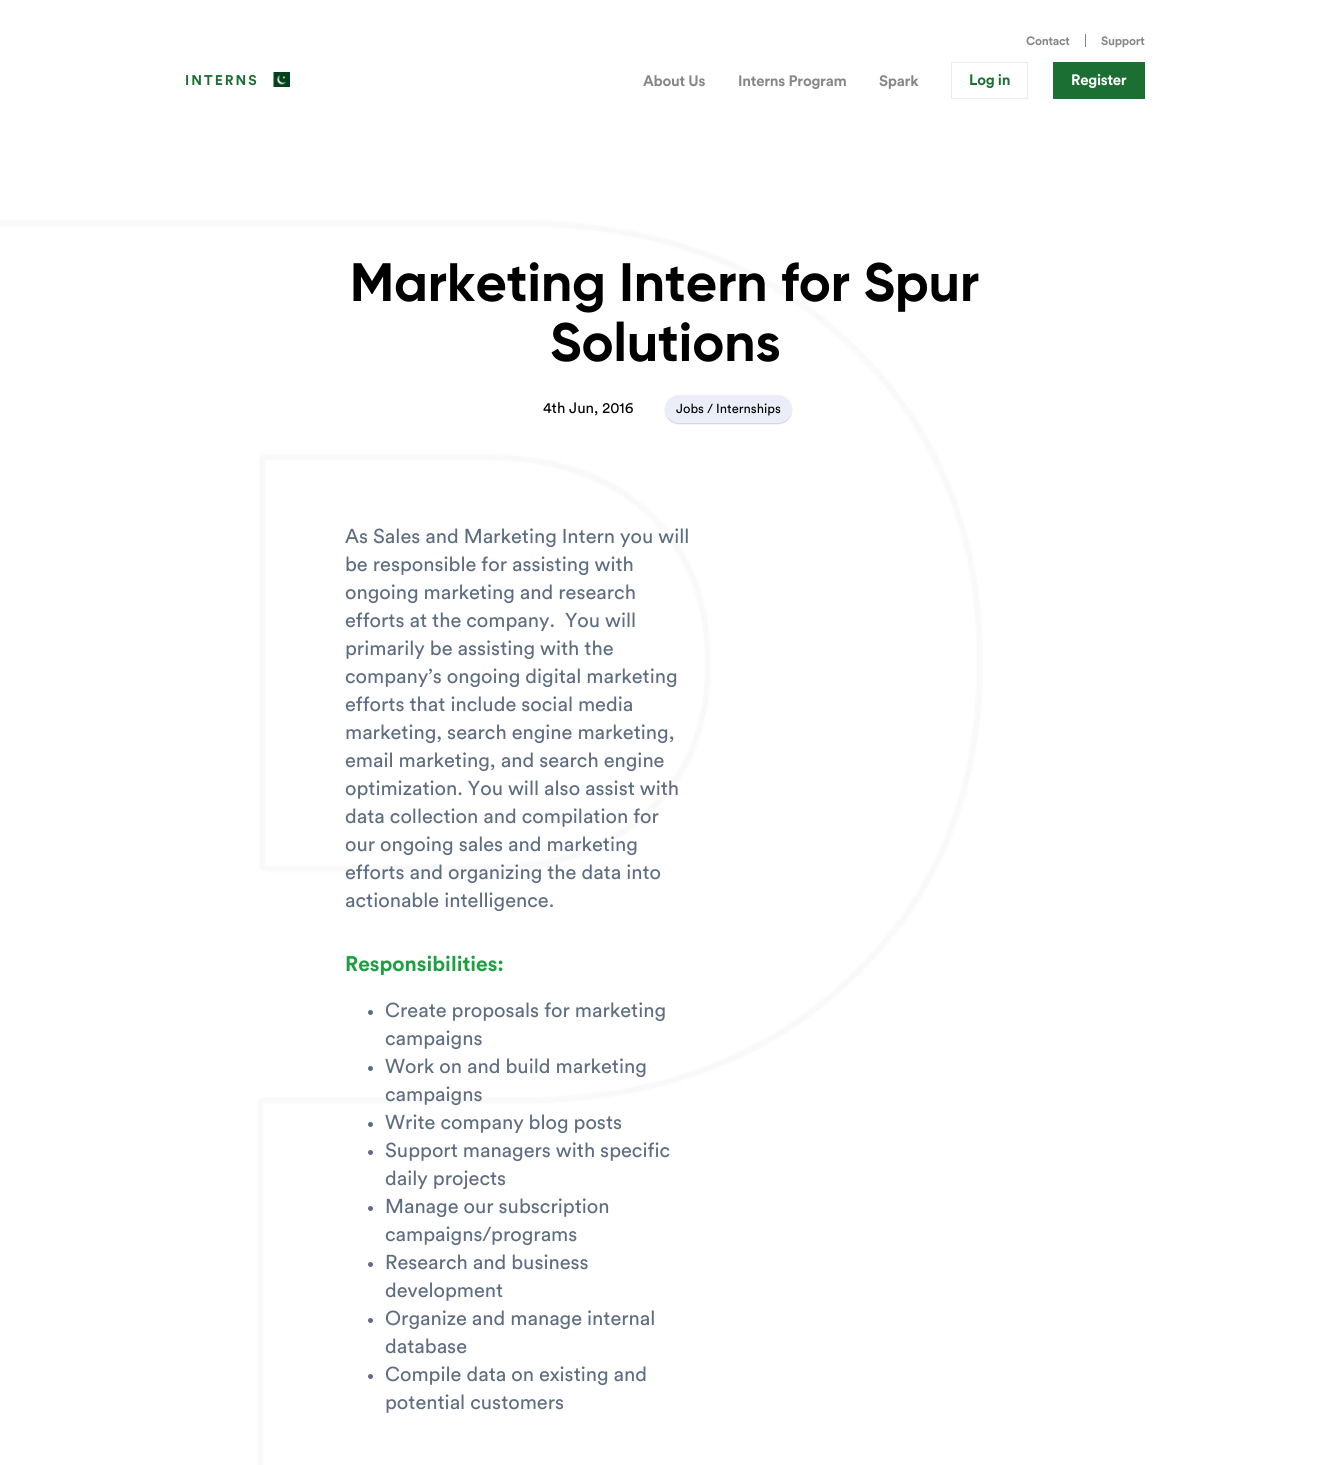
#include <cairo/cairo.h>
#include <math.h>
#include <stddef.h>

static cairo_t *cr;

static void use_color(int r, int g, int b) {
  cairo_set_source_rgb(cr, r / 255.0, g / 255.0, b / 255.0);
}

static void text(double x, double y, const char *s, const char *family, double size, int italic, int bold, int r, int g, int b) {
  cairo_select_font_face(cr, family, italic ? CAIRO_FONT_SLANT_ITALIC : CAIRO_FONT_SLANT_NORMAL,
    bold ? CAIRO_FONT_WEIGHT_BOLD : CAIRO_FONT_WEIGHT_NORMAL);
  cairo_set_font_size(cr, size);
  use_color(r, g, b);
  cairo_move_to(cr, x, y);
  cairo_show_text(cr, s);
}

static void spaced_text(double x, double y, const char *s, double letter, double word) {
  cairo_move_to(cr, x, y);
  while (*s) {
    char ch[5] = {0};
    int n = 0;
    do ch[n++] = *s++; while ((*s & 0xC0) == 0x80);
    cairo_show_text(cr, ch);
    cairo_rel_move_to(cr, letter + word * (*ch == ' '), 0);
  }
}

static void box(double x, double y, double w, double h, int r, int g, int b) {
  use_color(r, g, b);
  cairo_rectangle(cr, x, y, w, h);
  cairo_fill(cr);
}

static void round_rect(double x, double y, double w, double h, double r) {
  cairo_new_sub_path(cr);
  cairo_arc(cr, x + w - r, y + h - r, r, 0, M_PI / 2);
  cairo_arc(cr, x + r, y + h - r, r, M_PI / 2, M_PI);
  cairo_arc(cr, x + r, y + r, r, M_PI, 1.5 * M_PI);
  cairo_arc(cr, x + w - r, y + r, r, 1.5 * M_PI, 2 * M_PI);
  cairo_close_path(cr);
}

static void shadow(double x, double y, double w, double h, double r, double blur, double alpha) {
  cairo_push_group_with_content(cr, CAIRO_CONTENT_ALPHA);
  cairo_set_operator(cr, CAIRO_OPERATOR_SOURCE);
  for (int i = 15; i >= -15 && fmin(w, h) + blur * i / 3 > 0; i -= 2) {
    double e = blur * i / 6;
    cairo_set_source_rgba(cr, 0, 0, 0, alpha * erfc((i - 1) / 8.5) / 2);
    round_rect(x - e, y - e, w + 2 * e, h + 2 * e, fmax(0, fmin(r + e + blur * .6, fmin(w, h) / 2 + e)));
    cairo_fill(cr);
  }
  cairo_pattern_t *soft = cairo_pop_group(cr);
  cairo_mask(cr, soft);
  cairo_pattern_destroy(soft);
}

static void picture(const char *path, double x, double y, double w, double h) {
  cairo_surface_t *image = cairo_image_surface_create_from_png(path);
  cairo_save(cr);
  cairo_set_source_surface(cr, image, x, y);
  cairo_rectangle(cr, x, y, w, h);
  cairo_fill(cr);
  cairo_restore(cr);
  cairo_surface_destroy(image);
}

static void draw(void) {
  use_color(255, 255, 255);
  cairo_paint(cr);
  picture("img_01.png", 0, 220, 983, 1245);
  box(1085, 34, 1, 13, 135, 135, 135);
  picture("img_02.png", 273, 72, 17, 15);
  cairo_rectangle(cr, 951.5, 62.5, 76, 36);
  use_color(233, 236, 241);
  cairo_set_line_width(cr, 1);
  cairo_stroke(cr);
  box(1053, 62, 92, 37, 28, 111, 51);
  cairo_save(cr);
  cairo_set_fill_rule(cr, CAIRO_FILL_RULE_EVEN_ODD);
  cairo_new_path(cr);
  cairo_move_to(cr, 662, 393);
  cairo_line_to(cr, 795, 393);
  cairo_line_to(cr, 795, 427);
  cairo_line_to(cr, 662, 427);
  cairo_close_path(cr);
  cairo_move_to(cr, 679, 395);
  cairo_line_to(cr, 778, 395);
  cairo_curve_to(cr, 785.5, 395, 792, 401.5, 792, 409);
  cairo_curve_to(cr, 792, 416.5, 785.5, 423, 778, 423);
  cairo_line_to(cr, 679, 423);
  cairo_curve_to(cr, 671.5, 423, 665, 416.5, 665, 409);
  cairo_curve_to(cr, 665, 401.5, 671.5, 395, 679, 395);
  cairo_close_path(cr);
  cairo_clip(cr);
  use_color(0, 0, 0);
  shadow(665, 396, 127, 28, 14, 0.5, 0.18);
  cairo_restore(cr);
  cairo_set_source_rgba(cr, 0.216, 0.333, 0.745, 0.1);
  round_rect(665, 395, 127, 28, 14);
  cairo_fill(cr);
  use_color(94, 109, 129);
  cairo_arc(cr, 370.5, 1012.5, 2.5, 0, 2 * M_PI);
  cairo_fill(cr);
  cairo_arc(cr, 370.5, 1068.5, 2.5, 0, 2 * M_PI);
  cairo_fill(cr);
  cairo_arc(cr, 370.5, 1124.5, 2.5, 0, 2 * M_PI);
  cairo_fill(cr);
  cairo_arc(cr, 370.5, 1152.5, 2.5, 0, 2 * M_PI);
  cairo_fill(cr);
  cairo_arc(cr, 370.5, 1208.5, 2.5, 0, 2 * M_PI);
  cairo_fill(cr);
  cairo_arc(cr, 370.5, 1264.5, 2.5, 0, 2 * M_PI);
  cairo_fill(cr);
  cairo_arc(cr, 370.5, 1320.5, 2.5, 0, 2 * M_PI);
  cairo_fill(cr);
  cairo_arc(cr, 370.5, 1376.5, 2.5, 0, 2 * M_PI);
  cairo_fill(cr);
  cairo_select_font_face(cr, "Circular", CAIRO_FONT_SLANT_NORMAL, CAIRO_FONT_WEIGHT_BOLD);
  cairo_set_font_size(cr, 12);
  use_color(135, 135, 135);
  spaced_text(1026, 45, "Contact", -0.25, 0);
  spaced_text(1101, 45, "Support", -0.25, 0);
  cairo_set_font_size(cr, 14);
  use_color(28, 111, 51);
  spaced_text(185, 85, "INTERNS", 2, 0);
  cairo_set_font_size(cr, 15);
  use_color(135, 135, 135);
  spaced_text(643, 86, "About Us", -0.25, 0);
  spaced_text(738, 86, "Interns Program", -0.25, 0);
  spaced_text(879, 86, "Spark", -0.25, 0);
  use_color(28, 111, 51);
  spaced_text(969, 85, "Log in", -0.25, 0);
  use_color(255, 255, 255);
  spaced_text(1071, 85, "Register", -0.25, 0);
  text(350, 301, "Marketing Intern for Spur", "Gilroy", 54, 0, 1, 0, 0, 0);
  text(550, 361, "Solutions", "Gilroy", 54, 0, 1, 0, 0, 0);
  text(543, 413, "4th Jun, 2016", "Circular", 15, 0, 0, 0, 0, 0);
  text(676, 413, "Jobs / Internships", "Circular", 13, 0, 0, 0, 0, 0);
  text(345, 543, "As Sales and Marketing Intern you will", "Circular", 20, 0, 0, 94, 109, 129);
  text(345, 571, "be responsible for assisting with", "Circular", 20, 0, 0, 94, 109, 129);
  text(345, 599, "ongoing marketing and research", "Circular", 20, 0, 0, 94, 109, 129);
  text(345, 627, "efforts at the company.  You will", "Circular", 20, 0, 0, 94, 109, 129);
  text(345, 655, "primarily be assisting with the", "Circular", 20, 0, 0, 94, 109, 129);
  text(345, 683, "company’s ongoing digital marketing", "Circular", 20, 0, 0, 94, 109, 129);
  text(345, 711, "efforts that include social media", "Circular", 20, 0, 0, 94, 109, 129);
  text(345, 739, "marketing, search engine marketing,", "Circular", 20, 0, 0, 94, 109, 129);
  text(345, 767, "email marketing, and search engine", "Circular", 20, 0, 0, 94, 109, 129);
  text(345, 795, "optimization. You will also assist with", "Circular", 20, 0, 0, 94, 109, 129);
  text(345, 823, "data collection and compilation for", "Circular", 20, 0, 0, 94, 109, 129);
  text(345, 851, "our ongoing sales and marketing", "Circular", 20, 0, 0, 94, 109, 129);
  text(345, 879, "efforts and organizing the data into", "Circular", 20, 0, 0, 94, 109, 129);
  text(345, 907, "actionable intelligence.", "Circular", 20, 0, 0, 94, 109, 129);
  text(345, 971, "Responsibilities:", "Circular", 21, 0, 1, 30, 160, 66);
  text(385, 1017, "Create proposals for marketing", "Circular", 20, 0, 0, 94, 109, 129);
  text(385, 1045, "campaigns", "Circular", 20, 0, 0, 94, 109, 129);
  text(385, 1073, "Work on and build marketing", "Circular", 20, 0, 0, 94, 109, 129);
  text(385, 1101, "campaigns", "Circular", 20, 0, 0, 94, 109, 129);
  text(385, 1129, "Write company blog posts", "Circular", 20, 0, 0, 94, 109, 129);
  text(385, 1157, "Support managers with specific", "Circular", 20, 0, 0, 94, 109, 129);
  text(385, 1185, "daily projects", "Circular", 20, 0, 0, 94, 109, 129);
  text(385, 1213, "Manage our subscription", "Circular", 20, 0, 0, 94, 109, 129);
  text(385, 1241, "campaigns/programs", "Circular", 20, 0, 0, 94, 109, 129);
  text(385, 1269, "Research and business", "Circular", 20, 0, 0, 94, 109, 129);
  text(385, 1297, "development", "Circular", 20, 0, 0, 94, 109, 129);
  text(385, 1325, "Organize and manage internal", "Circular", 20, 0, 0, 94, 109, 129);
  text(385, 1353, "database", "Circular", 20, 0, 0, 94, 109, 129);
  text(385, 1381, "Compile data on existing and", "Circular", 20, 0, 0, 94, 109, 129);
  text(385, 1409, "potential customers", "Circular", 20, 0, 0, 94, 109, 129);
}

int main(void) {
  cairo_surface_t *surface = cairo_image_surface_create(CAIRO_FORMAT_RGB24, 1330, 1465);
  cr = cairo_create(surface);
  cairo_font_options_t *options = cairo_font_options_create();
  cairo_font_options_set_hint_metrics(options, CAIRO_HINT_METRICS_OFF);
  cairo_font_options_set_hint_style(options, CAIRO_HINT_STYLE_NONE);
  cairo_set_font_options(cr, options);
  cairo_set_miter_limit(cr, 4);
  draw();
  cairo_surface_write_to_png(surface, "out.png");
  cairo_font_options_destroy(options);
  cairo_destroy(cr);
  cairo_surface_destroy(surface);
  return 0;
}
